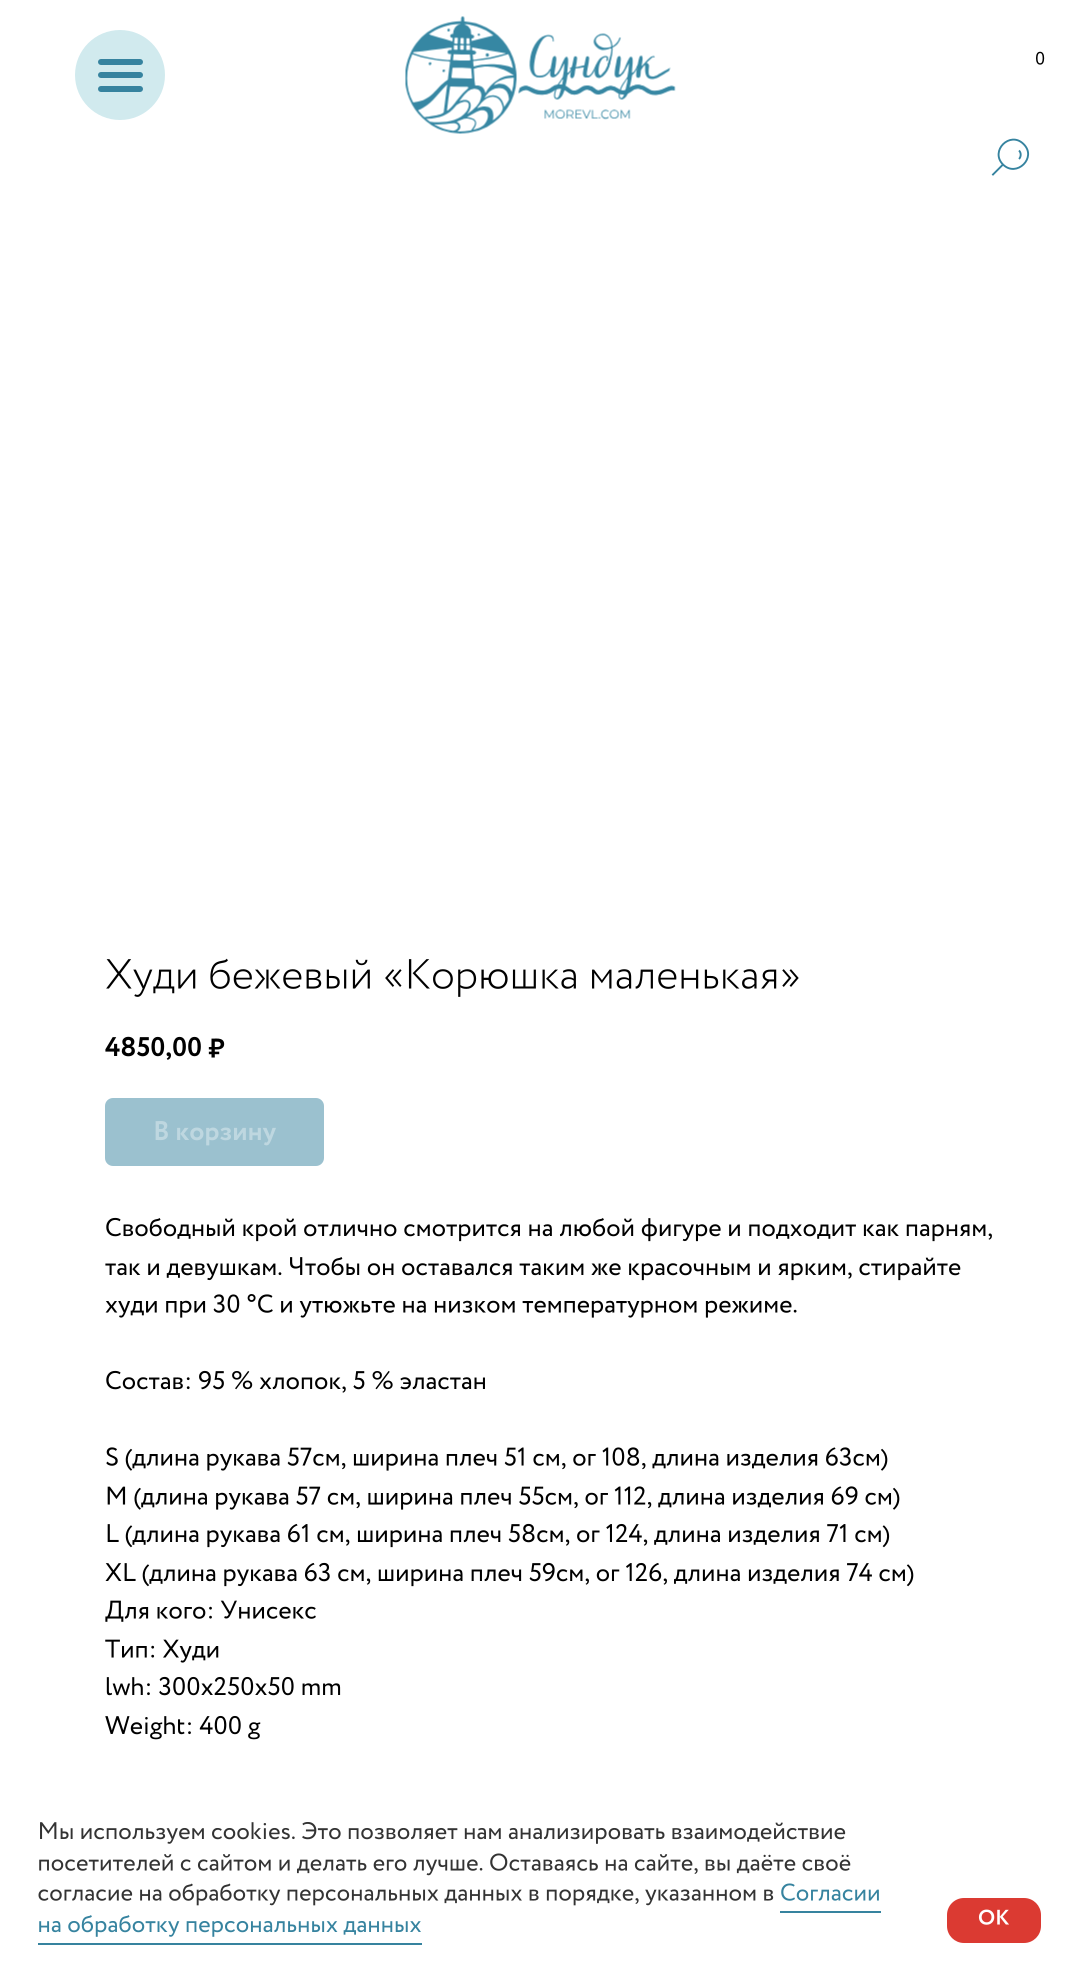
#include <cairo/cairo.h>
#include <math.h>
#include <stddef.h>

static cairo_t *cr;

static void use_color(int r, int g, int b) {
  cairo_set_source_rgb(cr, r / 255.0, g / 255.0, b / 255.0);
}

static void box(double x, double y, double w, double h, int r, int g, int b) {
  use_color(r, g, b);
  cairo_rectangle(cr, x, y, w, h);
  cairo_fill(cr);
}

static void round_rect(double x, double y, double w, double h, double r) {
  cairo_new_sub_path(cr);
  cairo_arc(cr, x + w - r, y + h - r, r, 0, M_PI / 2);
  cairo_arc(cr, x + r, y + h - r, r, M_PI / 2, M_PI);
  cairo_arc(cr, x + r, y + r, r, M_PI, 1.5 * M_PI);
  cairo_arc(cr, x + w - r, y + r, r, 1.5 * M_PI, 2 * M_PI);
  cairo_close_path(cr);
}

static void picture(const char *path, double x, double y, double w, double h) {
  cairo_surface_t *image = cairo_image_surface_create_from_png(path);
  cairo_save(cr);
  cairo_set_source_surface(cr, image, x, y);
  cairo_rectangle(cr, x, y, w, h);
  cairo_fill(cr);
  cairo_restore(cr);
  cairo_surface_destroy(image);
}

static void draw(void) {
  use_color(255, 255, 255);
  cairo_paint(cr);
  use_color(209, 234, 238);
  cairo_arc(cr, 120, 75, 45, 0, 2 * M_PI);
  cairo_fill(cr);
  use_color(54, 131, 159);
  round_rect(98, 59, 45, 6, 3);
  cairo_fill(cr);
  round_rect(98, 72, 45, 6, 3);
  cairo_fill(cr);
  round_rect(98, 86, 45, 6, 3);
  cairo_fill(cr);
  picture("img_01.png", 405, 16, 271, 118);
  picture("img_02.png", 1036, 51, 9, 14);
  cairo_new_path(cr);
  cairo_move_to(cr, 1002.5, 165);
  cairo_line_to(cr, 993, 174.5);
  cairo_set_line_width(cr, 1.9);
  cairo_set_line_cap(cr, CAIRO_LINE_CAP_SQUARE);
  cairo_stroke(cr);
  cairo_new_path(cr);
  cairo_move_to(cr, 1023.5, 144);
  cairo_curve_to(cr, 1037.5, 157.5, 1016.5, 178, 1003, 164.5);
  cairo_curve_to(cr, 989.5, 151, 1010, 130.5, 1023.5, 144);
  cairo_close_path(cr);
  cairo_move_to(cr, 1019, 150.5);
  cairo_curve_to(cr, 1021.5, 153, 1021, 157, 1019, 159);
  cairo_set_line_cap(cr, CAIRO_LINE_CAP_BUTT);
  cairo_stroke(cr);
  picture("img_03.png", 106, 958, 693, 39);
  picture("img_04.png", 105, 1036, 96, 24);
  picture("img_05.png", 208, 1038, 17, 20);
  use_color(155, 193, 207);
  round_rect(105, 1098, 219, 68, 8);
  cairo_fill(cr);
  picture("img_06.png", 155, 1121, 121, 25);
  picture("img_07.png", 106, 1217, 886, 25);
  picture("img_08.png", 105, 1257, 856, 24);
  picture("img_09.png", 105, 1294, 692, 24);
  picture("img_10.png", 106, 1370, 379, 23);
  picture("img_11.png", 106, 1447, 782, 24);
  picture("img_12.png", 107, 1486, 793, 24);
  picture("img_13.png", 107, 1523, 783, 25);
  picture("img_14.png", 105, 1562, 809, 25);
  picture("img_15.png", 105, 1600, 211, 22);
  picture("img_16.png", 105, 1639, 114, 24);
  picture("img_17.png", 106, 1676, 235, 20);
  picture("img_18.png", 105, 1715, 156, 25);
  picture("img_19.png", 40, 1822, 806, 22);
  picture("img_20.png", 39, 1853, 812, 23);
  picture("img_21.png", 38, 1883, 736, 23);
  picture("img_22.png", 781, 1883, 98, 18);
  box(780, 1911, 101, 2, 54, 131, 159);
  picture("img_23.png", 39, 1915, 382, 22);
  box(38, 1943, 384, 2, 54, 131, 159);
  use_color(219, 58, 50);
  round_rect(948, 1899, 92, 43, 16);
  cairo_fill_preserve(cr);
  cairo_set_line_width(cr, 2);
  cairo_stroke(cr);
  picture("img_24.png", 978, 1909, 31, 16);
}

int main(void) {
  cairo_surface_t *surface = cairo_image_surface_create(CAIRO_FORMAT_RGB24, 1078, 1965);
  cr = cairo_create(surface);
  cairo_font_options_t *options = cairo_font_options_create();
  cairo_font_options_set_hint_metrics(options, CAIRO_HINT_METRICS_OFF);
  cairo_font_options_set_hint_style(options, CAIRO_HINT_STYLE_NONE);
  cairo_set_font_options(cr, options);
  cairo_set_miter_limit(cr, 4);
  draw();
  cairo_surface_write_to_png(surface, "out.png");
  cairo_font_options_destroy(options);
  cairo_destroy(cr);
  cairo_surface_destroy(surface);
  return 0;
}
